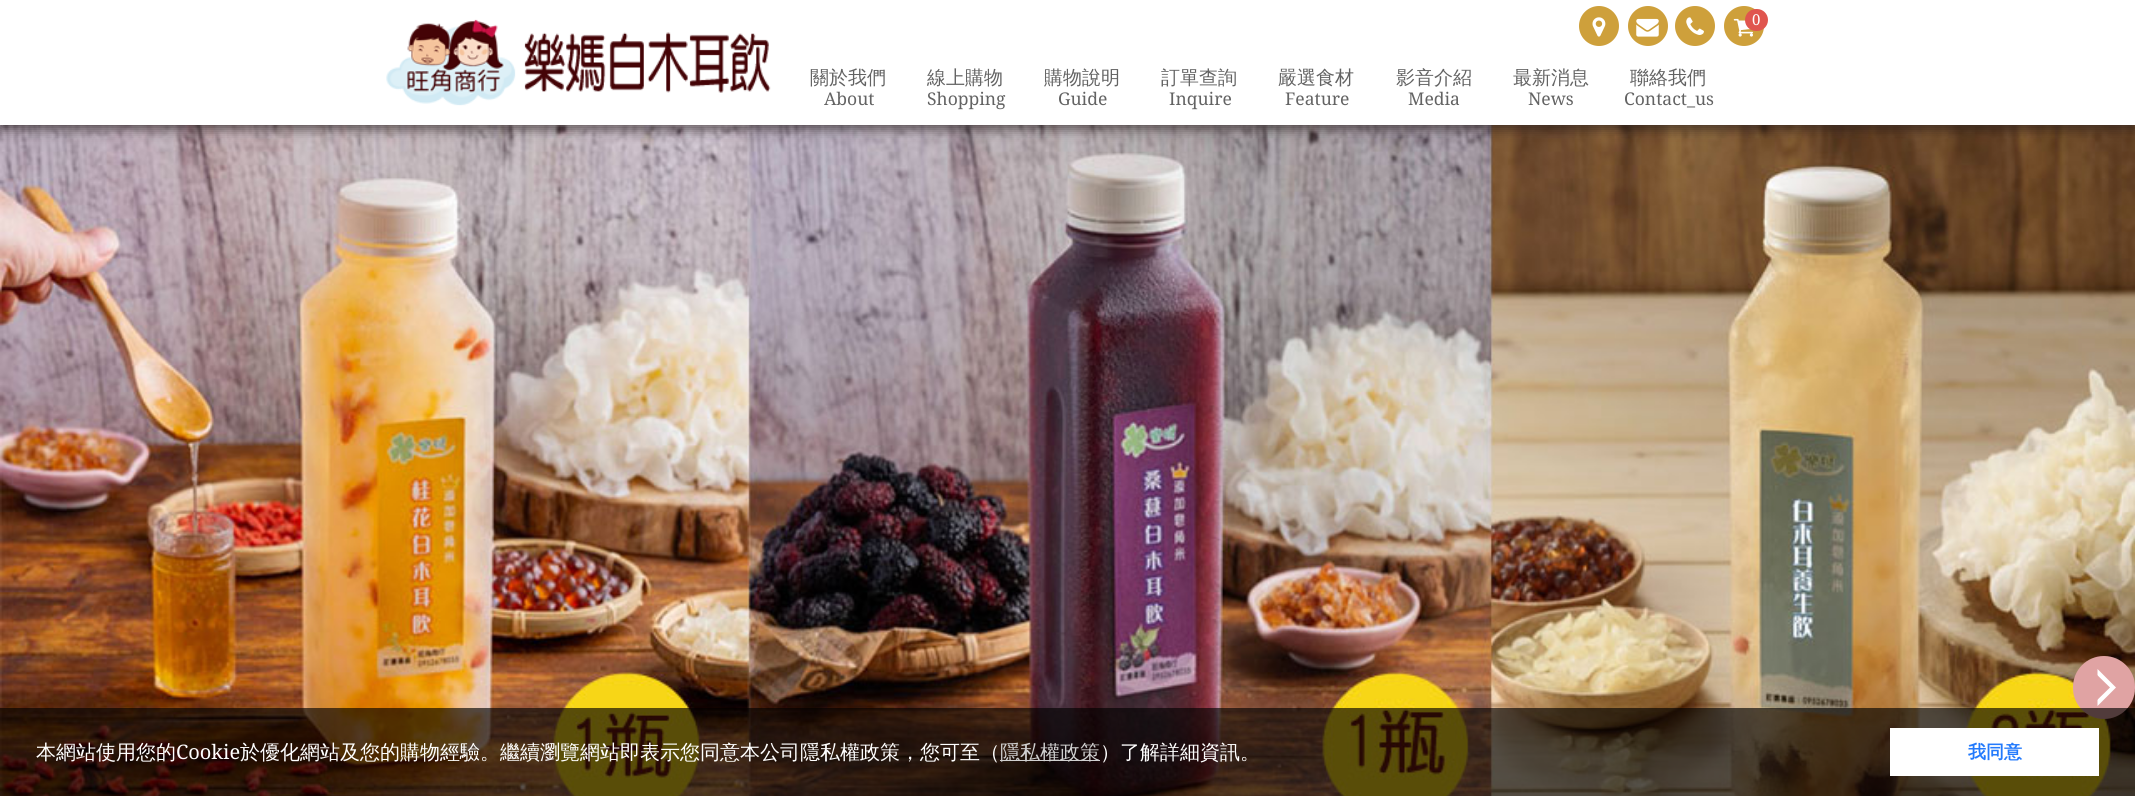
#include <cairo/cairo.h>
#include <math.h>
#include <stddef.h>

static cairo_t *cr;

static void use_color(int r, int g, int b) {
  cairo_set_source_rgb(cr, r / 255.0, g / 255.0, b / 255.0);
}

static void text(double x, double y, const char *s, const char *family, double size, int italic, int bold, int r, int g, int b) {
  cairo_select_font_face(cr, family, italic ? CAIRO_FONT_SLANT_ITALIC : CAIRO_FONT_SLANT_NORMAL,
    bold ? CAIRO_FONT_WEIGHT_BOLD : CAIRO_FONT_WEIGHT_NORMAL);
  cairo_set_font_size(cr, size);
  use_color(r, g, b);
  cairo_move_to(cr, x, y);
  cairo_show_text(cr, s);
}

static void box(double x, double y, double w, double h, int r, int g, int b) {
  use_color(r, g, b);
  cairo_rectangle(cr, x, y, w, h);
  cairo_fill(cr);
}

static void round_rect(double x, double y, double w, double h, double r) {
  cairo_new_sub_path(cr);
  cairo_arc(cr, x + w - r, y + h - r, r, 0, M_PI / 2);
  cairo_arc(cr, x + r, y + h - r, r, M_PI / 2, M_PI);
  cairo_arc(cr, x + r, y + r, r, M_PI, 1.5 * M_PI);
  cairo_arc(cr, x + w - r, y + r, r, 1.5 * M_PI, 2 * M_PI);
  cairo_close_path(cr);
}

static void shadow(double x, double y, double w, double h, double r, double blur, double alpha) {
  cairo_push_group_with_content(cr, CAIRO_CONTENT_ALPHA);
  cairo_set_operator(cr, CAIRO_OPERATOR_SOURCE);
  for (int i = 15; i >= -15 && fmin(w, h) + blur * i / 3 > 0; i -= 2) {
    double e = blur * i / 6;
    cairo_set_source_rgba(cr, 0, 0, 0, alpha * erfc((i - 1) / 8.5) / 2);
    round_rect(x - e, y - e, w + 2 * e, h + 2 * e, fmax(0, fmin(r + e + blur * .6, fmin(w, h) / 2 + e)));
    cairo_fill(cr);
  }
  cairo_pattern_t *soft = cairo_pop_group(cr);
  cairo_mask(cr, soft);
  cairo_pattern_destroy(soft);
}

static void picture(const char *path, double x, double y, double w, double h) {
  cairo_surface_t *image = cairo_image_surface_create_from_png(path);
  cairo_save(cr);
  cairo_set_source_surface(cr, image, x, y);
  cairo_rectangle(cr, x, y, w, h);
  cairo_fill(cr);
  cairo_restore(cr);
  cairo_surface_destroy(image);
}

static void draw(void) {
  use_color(255, 255, 255);
  cairo_paint(cr);
  picture("img_06.png", 0, 125, 2135, 671);
  use_color(34, 25, 25);
  shadow(0, 4, 2135, 125, 0, 6, 0.7);
  box(0, 0, 2135, 125, 255, 255, 255);
  picture("img_01.png", 386, 19, 385, 87);
  use_color(206, 160, 59);
  cairo_arc(cr, 1599, 26, 20, 0, 2 * M_PI);
  cairo_fill(cr);
  picture("img_02.png", 1592, 17, 14, 20);
  cairo_arc(cr, 1648, 26, 20, 0, 2 * M_PI);
  cairo_fill(cr);
  picture("img_03.png", 1636, 18, 23, 19);
  cairo_arc(cr, 1695, 26, 20, 0, 2 * M_PI);
  cairo_fill(cr);
  picture("img_04.png", 1686, 17, 18, 18);
  cairo_arc(cr, 1744, 26, 20, 0, 2 * M_PI);
  cairo_fill(cr);
  picture("img_05.png", 1733, 18, 20, 19);
  use_color(224, 85, 78);
  round_rect(1745, 9, 23, 22, 11);
  cairo_fill(cr);
  use_color(224, 163, 163);
  round_rect(2073, 656, 62, 63, 31);
  cairo_fill(cr);
  use_color(255, 255, 255);
  cairo_new_path(cr);
  cairo_move_to(cr, 2097.5, 706);
  cairo_line_to(cr, 2097.5, 669);
  cairo_line_to(cr, 2116, 687.5);
  cairo_close_path(cr);
  cairo_fill(cr);
  use_color(224, 163, 163);
  cairo_new_path(cr);
  cairo_move_to(cr, 2091, 706);
  cairo_line_to(cr, 2091, 669);
  cairo_line_to(cr, 2110, 687.5);
  cairo_close_path(cr);
  cairo_fill(cr);
  cairo_set_source_rgba(cr, 0, 0, 0, 0.64);
  cairo_rectangle(cr, 0, 708, 2135, 88);
  cairo_fill(cr);
  box(1000, 760, 100, 1, 208, 208, 208);
  box(1890, 728, 209, 48, 255, 255, 255);
  text(1752, 25, "0", "Noto Serif", 15, 0, 0, 255, 255, 255);
  text(810, 84, "關於我們", "WenQuanYi Zen Hei Medium", 19, 0, 0, 99, 99, 99);
  text(824, 105, "About", "Noto Serif", 17.5, 0, 0, 99, 99, 99);
  text(927, 84, "線上購物", "WenQuanYi Zen Hei Medium", 19, 0, 0, 99, 99, 99);
  text(927, 105, "Shopping", "Noto Serif", 17.5, 0, 0, 99, 99, 99);
  text(1044, 84, "購物說明", "WenQuanYi Zen Hei Medium", 19, 0, 0, 99, 99, 99);
  text(1058, 105, "Guide", "Noto Serif", 17.5, 0, 0, 99, 99, 99);
  text(1161, 84, "訂單查詢", "WenQuanYi Zen Hei Medium", 19, 0, 0, 99, 99, 99);
  text(1169, 105, "Inquire", "Noto Serif", 17.5, 0, 0, 99, 99, 99);
  text(1278, 84, "嚴選食材", "WenQuanYi Zen Hei Medium", 19, 0, 0, 99, 99, 99);
  text(1285, 105, "Feature", "Noto Serif", 17.5, 0, 0, 99, 99, 99);
  text(1396, 84, "影音介紹", "WenQuanYi Zen Hei Medium", 19, 0, 0, 99, 99, 99);
  text(1408, 105, "Media", "Noto Serif", 17.5, 0, 0, 99, 99, 99);
  text(1513, 84, "最新消息", "WenQuanYi Zen Hei Medium", 19, 0, 0, 99, 99, 99);
  text(1528, 105, "News", "Noto Serif", 17.5, 0, 0, 99, 99, 99);
  text(1630, 84, "聯絡我們", "WenQuanYi Zen Hei Medium", 19, 0, 0, 99, 99, 99);
  text(1624, 105, "Contact_us", "Noto Serif", 17.5, 0, 0, 99, 99, 99);
  text(36, 759, "本網站使用您的", "WenQuanYi Zen Hei Medium", 20, 0, 0, 255, 255, 255);
  text(176, 759, "Cookie", "Noto Serif", 20, 0, 0, 255, 255, 255);
  text(240, 759, "於優化網站及您的購物經驗。繼續瀏覽網站即表示您同意本公司隱私權政策，您可至（", "WenQuanYi Zen Hei Medium", 20, 0, 0, 255, 255, 255);
  text(1000, 759, "隱私權政策", "WenQuanYi Zen Hei Medium", 20, 0, 0, 208, 208, 208);
  text(1100, 759, "）了解詳細資訊。", "WenQuanYi Zen Hei Medium", 20, 0, 0, 255, 255, 255);
  text(1968, 758, "我同意", "WenQuanYi Zen Hei", 18, 0, 1, 35, 122, 252);
}

int main(void) {
  cairo_surface_t *surface = cairo_image_surface_create(CAIRO_FORMAT_RGB24, 2135, 796);
  cr = cairo_create(surface);
  cairo_font_options_t *options = cairo_font_options_create();
  cairo_font_options_set_hint_metrics(options, CAIRO_HINT_METRICS_OFF);
  cairo_font_options_set_hint_style(options, CAIRO_HINT_STYLE_NONE);
  cairo_set_font_options(cr, options);
  cairo_set_miter_limit(cr, 4);
  draw();
  cairo_surface_write_to_png(surface, "out.png");
  cairo_font_options_destroy(options);
  cairo_destroy(cr);
  cairo_surface_destroy(surface);
  return 0;
}
